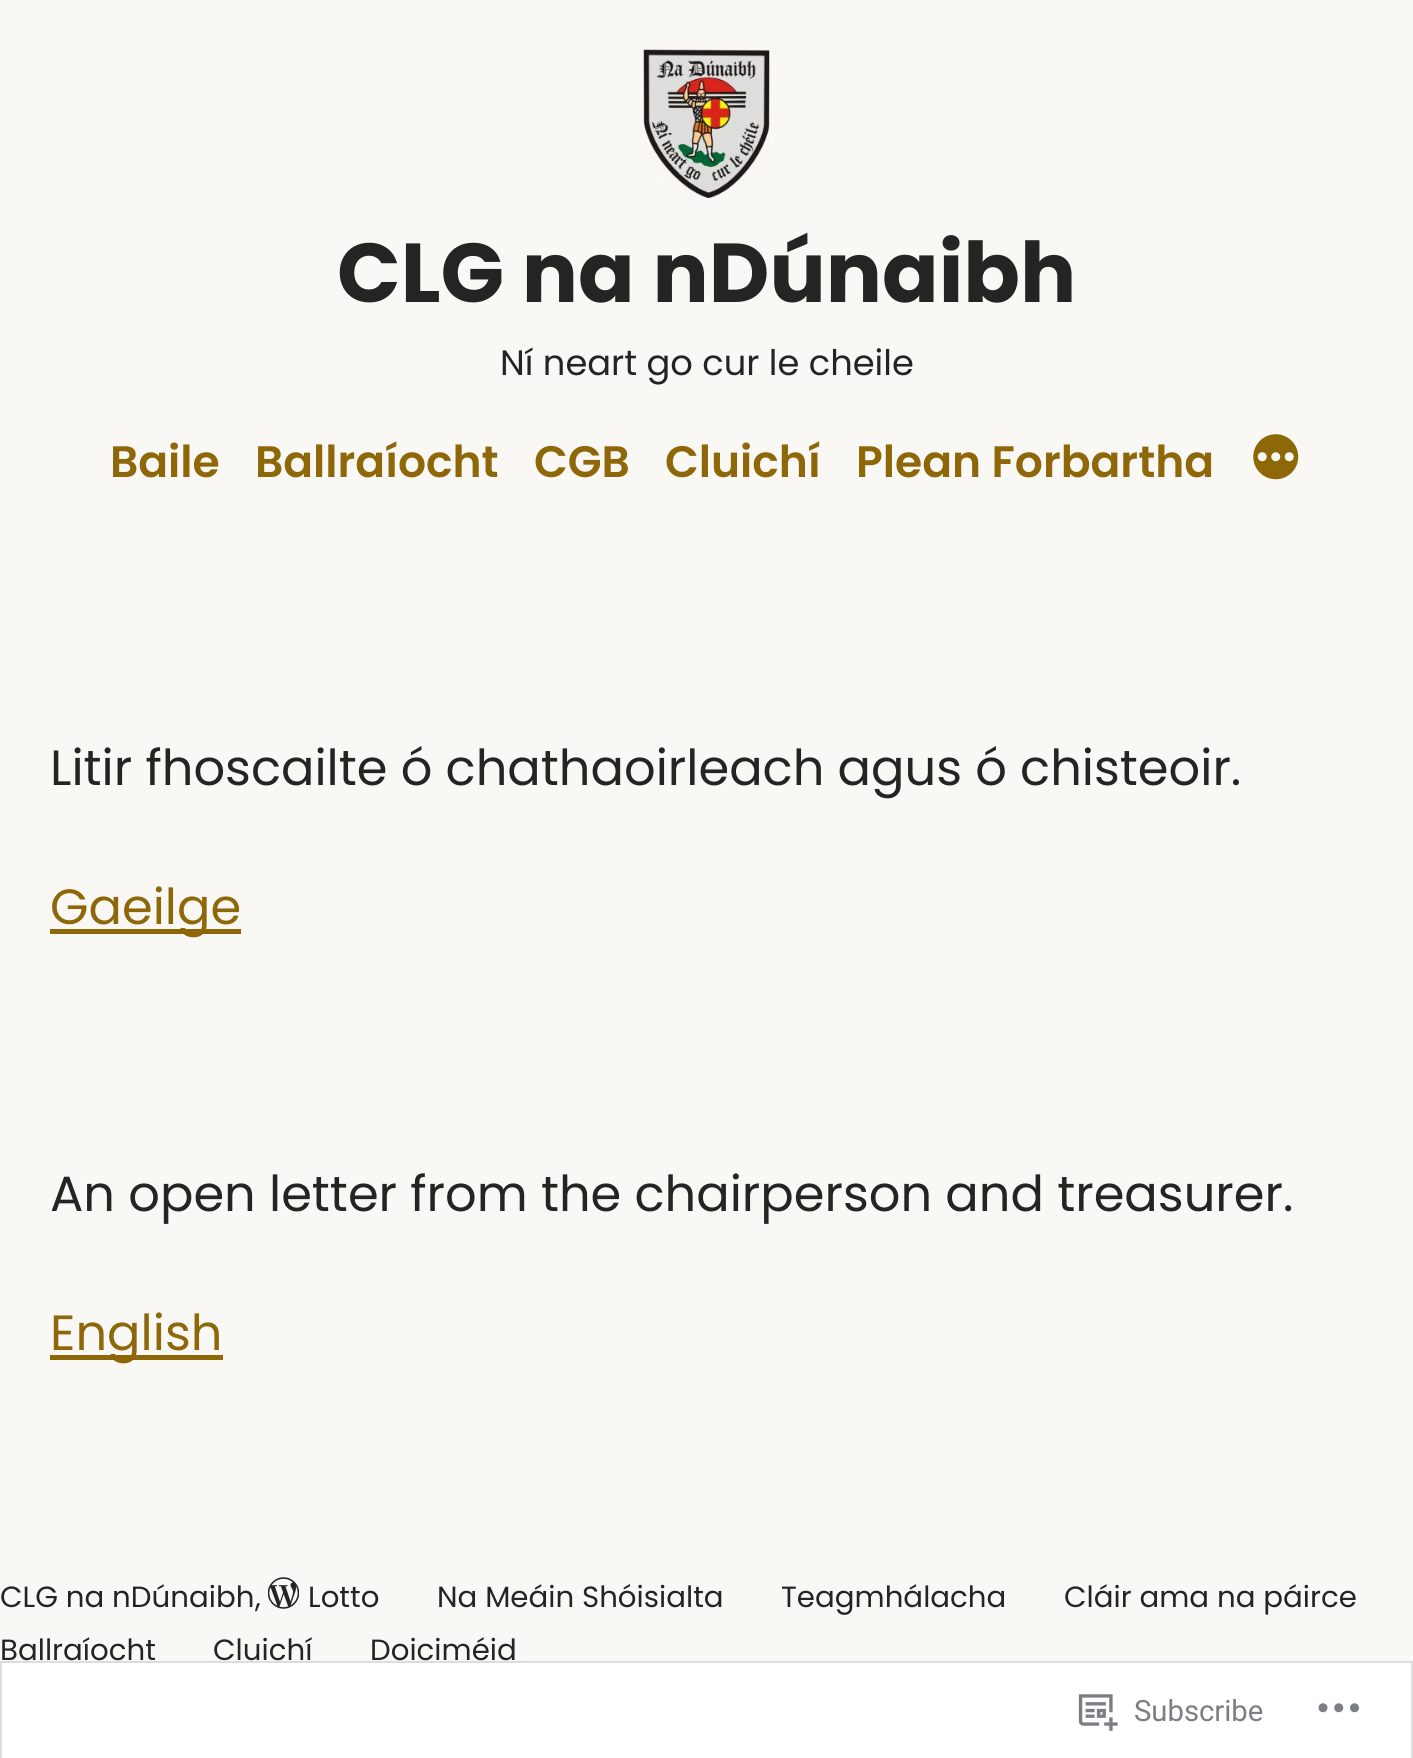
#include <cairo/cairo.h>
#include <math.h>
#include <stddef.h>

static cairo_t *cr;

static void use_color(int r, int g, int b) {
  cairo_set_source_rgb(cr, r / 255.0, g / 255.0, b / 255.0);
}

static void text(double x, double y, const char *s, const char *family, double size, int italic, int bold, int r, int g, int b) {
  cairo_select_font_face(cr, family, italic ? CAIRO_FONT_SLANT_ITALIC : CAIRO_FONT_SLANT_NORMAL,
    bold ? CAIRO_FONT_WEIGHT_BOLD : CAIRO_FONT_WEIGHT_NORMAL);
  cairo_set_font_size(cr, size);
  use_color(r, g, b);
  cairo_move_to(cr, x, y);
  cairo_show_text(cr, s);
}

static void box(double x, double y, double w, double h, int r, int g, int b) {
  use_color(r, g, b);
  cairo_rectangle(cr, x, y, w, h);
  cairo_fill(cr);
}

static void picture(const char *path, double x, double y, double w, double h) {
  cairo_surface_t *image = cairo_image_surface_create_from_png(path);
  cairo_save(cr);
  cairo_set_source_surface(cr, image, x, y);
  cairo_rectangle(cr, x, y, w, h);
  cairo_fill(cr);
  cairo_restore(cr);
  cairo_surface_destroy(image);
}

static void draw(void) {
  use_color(250, 248, 245);
  cairo_paint(cr);
  picture("img_01.png", 643, 49, 127, 149);
  picture("img_02.png", 1253, 434, 46, 46);
  box(50, 929, 191, 5, 141, 103, 8);
  box(50, 1355, 173, 5, 141, 103, 8);
  picture("img_03.png", 268, 1577, 31, 32);
  use_color(255, 255, 255);
  cairo_rectangle(cr, 1, 1662, 1411, 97);
  cairo_fill_preserve(cr);
  use_color(221, 221, 222);
  cairo_stroke(cr);
  picture("img_04.png", 1078, 1694, 40, 37);
  picture("img_05.png", 1318, 1703, 41, 10);
  text(337, 302, "CLG na nDúnaibh", "Poppins", 83.5, 0, 1, 36, 36, 36);
  text(500, 375, "Ní neart go cur le cheile", "Poppins", 35.25, 0, 0, 36, 36, 36);
  text(110, 477, "Baile", "Poppins SemiBold", 44, 0, 0, 141, 103, 8);
  text(255, 477, "Ballraíocht", "Poppins SemiBold", 44, 0, 0, 141, 103, 8);
  text(534, 477, "CGB", "Poppins SemiBold", 44, 0, 0, 141, 103, 8);
  text(665, 477, "Cluichí", "Poppins SemiBold", 44, 0, 0, 141, 103, 8);
  text(856, 477, "Plean Forbartha", "Poppins SemiBold", 44, 0, 0, 141, 103, 8);
  text(50, 785, "Litir fhoscailte ó chathaoirleach agus ó chisteoir.", "Poppins", 49.5, 0, 0, 36, 36, 36);
  text(50, 924, "Gaeilge", "Poppins", 49.5, 0, 0, 141, 103, 8);
  text(50, 1211, "An open letter from the chairperson and treasurer.", "Poppins", 49.5, 0, 0, 36, 36, 36);
  text(50, 1350, "English", "Poppins", 49.5, 0, 0, 141, 103, 8);
  text(0, 1607, "CLG na nDúnaibh", "Poppins", 29.25, 0, 0, 36, 36, 36);
  text(255, 1607, ",", "Poppins", 29.25, 0, 0, 36, 36, 36);
  text(308, 1607, "Lotto", "Poppins", 29.25, 0, 0, 36, 36, 36);
  text(437, 1607, "Na Meáin Shóisialta", "Poppins", 29.25, 0, 0, 36, 36, 36);
  text(781, 1607, "Teagmhálacha", "Poppins", 29.25, 0, 0, 36, 36, 36);
  text(1064, 1607, "Cláir ama na páirce", "Poppins", 29.25, 0, 0, 36, 36, 36);
  text(0, 1660, "Ballraíocht", "Poppins", 29.25, 0, 0, 36, 36, 36);
  text(213, 1660, "Cluichí", "Poppins", 29.25, 0, 0, 36, 36, 36);
  text(370, 1660, "Doiciméid", "Poppins", 29.25, 0, 0, 36, 36, 36);
  text(1134, 1721, "Subscribe", "Roboto", 29.25, 0, 0, 123, 126, 132);
}

int main(void) {
  cairo_surface_t *surface = cairo_image_surface_create(CAIRO_FORMAT_RGB24, 1413, 1758);
  cr = cairo_create(surface);
  cairo_font_options_t *options = cairo_font_options_create();
  cairo_font_options_set_hint_metrics(options, CAIRO_HINT_METRICS_OFF);
  cairo_font_options_set_hint_style(options, CAIRO_HINT_STYLE_NONE);
  cairo_set_font_options(cr, options);
  cairo_set_miter_limit(cr, 4);
  draw();
  cairo_surface_write_to_png(surface, "out.png");
  cairo_font_options_destroy(options);
  cairo_destroy(cr);
  cairo_surface_destroy(surface);
  return 0;
}
